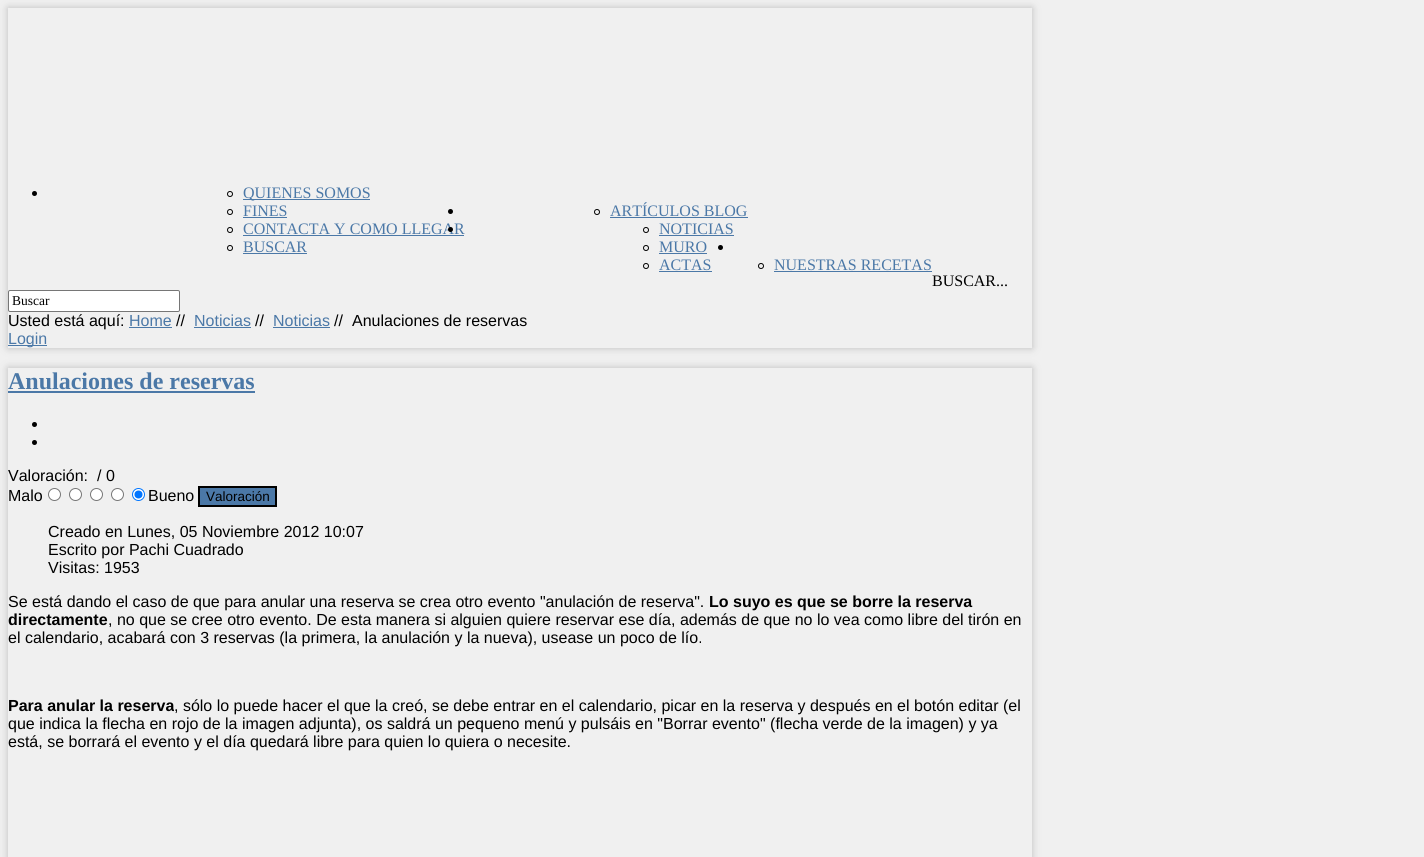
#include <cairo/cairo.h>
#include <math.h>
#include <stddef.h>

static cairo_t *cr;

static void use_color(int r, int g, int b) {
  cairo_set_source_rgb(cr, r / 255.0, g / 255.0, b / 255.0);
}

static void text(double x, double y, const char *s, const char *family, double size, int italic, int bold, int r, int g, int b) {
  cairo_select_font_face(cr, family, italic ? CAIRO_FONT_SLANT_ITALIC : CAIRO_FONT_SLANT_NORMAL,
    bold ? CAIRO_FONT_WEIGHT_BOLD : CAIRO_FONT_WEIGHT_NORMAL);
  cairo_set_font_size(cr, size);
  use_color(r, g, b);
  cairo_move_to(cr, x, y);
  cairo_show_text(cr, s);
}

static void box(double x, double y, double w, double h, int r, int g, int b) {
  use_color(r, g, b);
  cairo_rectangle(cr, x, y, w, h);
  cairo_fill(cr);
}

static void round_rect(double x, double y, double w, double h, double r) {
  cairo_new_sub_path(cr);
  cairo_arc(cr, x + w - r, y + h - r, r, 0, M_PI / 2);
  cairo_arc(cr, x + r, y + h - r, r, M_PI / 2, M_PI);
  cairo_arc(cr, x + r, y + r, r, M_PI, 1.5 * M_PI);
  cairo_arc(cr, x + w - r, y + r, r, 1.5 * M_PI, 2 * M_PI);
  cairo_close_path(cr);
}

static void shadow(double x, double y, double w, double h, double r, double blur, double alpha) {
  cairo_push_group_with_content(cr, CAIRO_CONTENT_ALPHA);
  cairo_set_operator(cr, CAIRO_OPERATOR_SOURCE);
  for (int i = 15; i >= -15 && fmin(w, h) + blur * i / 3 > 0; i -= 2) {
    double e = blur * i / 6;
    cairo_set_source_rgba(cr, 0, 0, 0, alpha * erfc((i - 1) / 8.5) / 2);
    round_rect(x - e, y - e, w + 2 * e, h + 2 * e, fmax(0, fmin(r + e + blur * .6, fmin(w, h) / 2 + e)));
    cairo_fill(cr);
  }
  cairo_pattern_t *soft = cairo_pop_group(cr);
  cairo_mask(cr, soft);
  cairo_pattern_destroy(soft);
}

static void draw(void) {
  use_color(240, 240, 240);
  cairo_paint(cr);
  cairo_save(cr);
  cairo_set_fill_rule(cr, CAIRO_FILL_RULE_EVEN_ODD);
  cairo_new_path(cr);
  cairo_move_to(cr, 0, 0);
  cairo_line_to(cr, 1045, 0);
  cairo_line_to(cr, 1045, 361);
  cairo_line_to(cr, 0, 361);
  cairo_close_path(cr);
  cairo_move_to(cr, 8, 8);
  cairo_line_to(cr, 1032, 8);
  cairo_line_to(cr, 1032, 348);
  cairo_line_to(cr, 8, 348);
  cairo_close_path(cr);
  cairo_clip(cr);
  use_color(189, 189, 189);
  shadow(8, 8, 1024, 340, 0, 4, 1);
  cairo_restore(cr);
  use_color(0, 0, 0);
  cairo_arc(cr, 34.5, 193.5, 2.5, 0, 2 * M_PI);
  cairo_fill(cr);
  cairo_arc(cr, 230, 194, 2.5, 0, 2 * M_PI);
  cairo_set_line_width(cr, 1);
  cairo_stroke(cr);
  box(243, 199, 127, 1, 75, 120, 167);
  cairo_arc(cr, 230, 212, 2.5, 0, 2 * M_PI);
  use_color(0, 0, 0);
  cairo_stroke(cr);
  box(243, 217, 44, 1, 75, 120, 167);
  cairo_arc(cr, 230, 230, 2.5, 0, 2 * M_PI);
  use_color(0, 0, 0);
  cairo_stroke(cr);
  box(243, 235, 221, 1, 75, 120, 167);
  cairo_arc(cr, 230, 248, 2.5, 0, 2 * M_PI);
  use_color(0, 0, 0);
  cairo_stroke(cr);
  box(243, 253, 64, 1, 75, 120, 167);
  use_color(0, 0, 0);
  cairo_arc(cr, 450.5, 211.5, 2.5, 0, 2 * M_PI);
  cairo_fill(cr);
  cairo_arc(cr, 597, 212, 2.5, 0, 2 * M_PI);
  cairo_stroke(cr);
  box(610, 217, 138, 1, 75, 120, 167);
  cairo_arc(cr, 646, 230, 2.5, 0, 2 * M_PI);
  use_color(0, 0, 0);
  cairo_stroke(cr);
  box(659, 235, 75, 1, 75, 120, 167);
  cairo_arc(cr, 646, 248, 2.5, 0, 2 * M_PI);
  use_color(0, 0, 0);
  cairo_stroke(cr);
  box(659, 253, 48, 1, 75, 120, 167);
  cairo_arc(cr, 646, 266, 2.5, 0, 2 * M_PI);
  use_color(0, 0, 0);
  cairo_stroke(cr);
  box(659, 271, 53, 1, 75, 120, 167);
  use_color(0, 0, 0);
  cairo_arc(cr, 720.5, 247.5, 2.5, 0, 2 * M_PI);
  cairo_fill(cr);
  cairo_arc(cr, 761, 266, 2.5, 0, 2 * M_PI);
  cairo_stroke(cr);
  box(774, 271, 158, 1, 75, 120, 167);
  use_color(255, 255, 255);
  round_rect(8.5, 290.5, 171, 21, 1.5);
  cairo_fill_preserve(cr);
  use_color(118, 118, 118);
  cairo_stroke(cr);
  box(129, 327, 43, 1, 75, 120, 167);
  box(194, 327, 57, 1, 75, 120, 167);
  box(273, 327, 57, 1, 75, 120, 167);
  box(8, 345, 39, 1, 75, 120, 167);
  cairo_save(cr);
  cairo_set_fill_rule(cr, CAIRO_FILL_RULE_EVEN_ODD);
  cairo_new_path(cr);
  cairo_move_to(cr, 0, 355);
  cairo_line_to(cr, 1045, 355);
  cairo_line_to(cr, 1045, 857);
  cairo_line_to(cr, 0, 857);
  cairo_close_path(cr);
  cairo_move_to(cr, 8, 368);
  cairo_line_to(cr, 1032, 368);
  cairo_line_to(cr, 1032, 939);
  cairo_line_to(cr, 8, 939);
  cairo_close_path(cr);
  cairo_clip(cr);
  use_color(189, 189, 189);
  shadow(8, 368, 1024, 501, 0, 4, 1);
  cairo_restore(cr);
  box(8, 391, 247, 2, 75, 120, 167);
  use_color(0, 0, 0);
  cairo_arc(cr, 34.5, 424.5, 2.5, 0, 2 * M_PI);
  cairo_fill(cr);
  cairo_arc(cr, 34.5, 442.5, 2.5, 0, 2 * M_PI);
  cairo_fill(cr);
  use_color(255, 255, 255);
  cairo_arc(cr, 54.5, 494.5, 6, 0, 2 * M_PI);
  cairo_fill_preserve(cr);
  use_color(118, 118, 118);
  cairo_stroke(cr);
  use_color(255, 255, 255);
  cairo_arc(cr, 75.5, 494.5, 6, 0, 2 * M_PI);
  cairo_fill_preserve(cr);
  use_color(118, 118, 118);
  cairo_stroke(cr);
  use_color(255, 255, 255);
  cairo_arc(cr, 96.5, 494.5, 6, 0, 2 * M_PI);
  cairo_fill_preserve(cr);
  use_color(118, 118, 118);
  cairo_stroke(cr);
  use_color(255, 255, 255);
  cairo_arc(cr, 117.5, 494.5, 6, 0, 2 * M_PI);
  cairo_fill_preserve(cr);
  use_color(118, 118, 118);
  cairo_stroke(cr);
  use_color(255, 255, 255);
  cairo_arc(cr, 138.5, 494.5, 6, 0, 2 * M_PI);
  cairo_fill_preserve(cr);
  use_color(0, 117, 255);
  cairo_stroke(cr);
  cairo_arc(cr, 138.5, 494.5, 4, 0, 2 * M_PI);
  cairo_fill(cr);
  use_color(75, 120, 167);
  cairo_rectangle(cr, 199, 487, 77, 19);
  cairo_fill_preserve(cr);
  use_color(0, 0, 0);
  cairo_set_line_width(cr, 2);
  cairo_stroke(cr);
  text(243, 198, "QUIENES SOMOS", "Liberation Serif", 16, 0, 0, 75, 120, 167);
  text(243, 216, "FINES", "Liberation Serif", 16, 0, 0, 75, 120, 167);
  text(243, 234, "CONTACTA Y COMO LLEGAR", "Liberation Serif", 16, 0, 0, 75, 120, 167);
  text(243, 252, "BUSCAR", "Liberation Serif", 16, 0, 0, 75, 120, 167);
  text(610, 216, "ARTÍCULOS BLOG", "Liberation Serif", 16, 0, 0, 75, 120, 167);
  use_color(0, 0, 0);
  cairo_new_path(cr);
  cairo_arc(cr, 450.5, 229.5, 2.5, 0, 2 * M_PI);
  cairo_fill(cr);
  text(659, 234, "NOTICIAS", "Liberation Serif", 16, 0, 0, 75, 120, 167);
  text(659, 252, "MURO", "Liberation Serif", 16, 0, 0, 75, 120, 167);
  text(659, 270, "ACTAS", "Liberation Serif", 16, 0, 0, 75, 120, 167);
  text(774, 270, "NUESTRAS RECETAS", "Liberation Serif", 16, 0, 0, 75, 120, 167);
  text(932, 286, "BUSCAR...", "Liberation Serif", 16, 0, 0, 0, 0, 0);
  text(12, 305, "Buscar", "Liberation Serif", 13.5, 0, 0, 0, 0, 0);
  text(8, 326, "Usted está aquí:", "Liberation Sans", 16, 0, 0, 0, 0, 0);
  text(129, 326, "Home", "Liberation Sans", 16, 0, 0, 75, 120, 167);
  text(176, 326, "//", "Liberation Sans", 16, 0, 0, 0, 0, 0);
  text(194, 326, "Noticias", "Liberation Sans", 16, 0, 0, 75, 120, 167);
  text(255, 326, "//", "Liberation Sans", 16, 0, 0, 0, 0, 0);
  text(273, 326, "Noticias", "Liberation Sans", 16, 0, 0, 75, 120, 167);
  text(334, 326, "//", "Liberation Sans", 16, 0, 0, 0, 0, 0);
  text(352, 326, "Anulaciones de reservas", "Liberation Sans", 16, 0, 0, 0, 0, 0);
  text(8, 344, "Login", "Liberation Sans", 16, 0, 0, 75, 120, 167);
  text(8, 389, "Anulaciones de reservas", "Liberation Serif", 24, 0, 1, 75, 120, 167);
  text(8, 481, "Valoración:", "Liberation Sans", 16, 0, 0, 0, 0, 0);
  text(97, 481, "/ 0", "Liberation Sans", 16, 0, 0, 0, 0, 0);
  text(8, 501, "Malo", "Liberation Sans", 16, 0, 0, 0, 0, 0);
  text(148, 501, "Bueno", "Liberation Sans", 16, 0, 0, 0, 0, 0);
  text(206, 501, "Valoración", "Liberation Sans", 13.5, 0, 0, 0, 0, 0);
  text(48, 537, "Creado en Lunes, 05 Noviembre 2012 10:07", "Liberation Sans", 16, 0, 0, 0, 0, 0);
  text(48, 555, "Escrito por Pachi Cuadrado", "Liberation Sans", 16, 0, 0, 0, 0, 0);
  text(48, 573, "Visitas: 1953", "Liberation Sans", 16, 0, 0, 0, 0, 0);
  text(8, 607, "Se está dando el caso de que para anular una reserva se crea otro evento \"anulación de reserva\".", "Liberation Sans", 16, 0, 0, 0, 0, 0);
  text(709, 607, "Lo suyo es que se borre la reserva", "Liberation Sans", 16, 0, 1, 0, 0, 0);
  text(8, 625, "directamente", "Liberation Sans", 16, 0, 1, 0, 0, 0);
  text(108, 625, ", no que se cree otro evento. De esta manera si alguien quiere reservar ese día, además de que no lo vea como libre del tirón en", "Liberation Sans", 16, 0, 0, 0, 0, 0);
  text(8, 643, "el calendario, acabará con 3 reservas (la primera, la anulación y la nueva), usease un poco de lío.", "Liberation Sans", 16, 0, 0, 0, 0, 0);
  text(8, 711, "Para anular la reserva", "Liberation Sans", 16, 0, 1, 0, 0, 0);
  text(174, 711, ", sólo lo puede hacer el que la creó, se debe entrar en el calendario, picar en la reserva y después en el botón editar (el", "Liberation Sans", 16, 0, 0, 0, 0, 0);
  text(8, 729, "que indica la flecha en rojo de la imagen adjunta), os saldrá un pequeno menú y pulsáis en \"Borrar evento\" (flecha verde de la imagen) y ya", "Liberation Sans", 16, 0, 0, 0, 0, 0);
  text(8, 747, "está, se borrará el evento y el día quedará libre para quien lo quiera o necesite.", "Liberation Sans", 16, 0, 0, 0, 0, 0);
}

int main(void) {
  cairo_surface_t *surface = cairo_image_surface_create(CAIRO_FORMAT_RGB24, 1424, 857);
  cr = cairo_create(surface);
  cairo_font_options_t *options = cairo_font_options_create();
  cairo_font_options_set_hint_metrics(options, CAIRO_HINT_METRICS_OFF);
  cairo_font_options_set_hint_style(options, CAIRO_HINT_STYLE_NONE);
  cairo_set_font_options(cr, options);
  cairo_set_miter_limit(cr, 4);
  draw();
  cairo_surface_write_to_png(surface, "out.png");
  cairo_font_options_destroy(options);
  cairo_destroy(cr);
  cairo_surface_destroy(surface);
  return 0;
}
